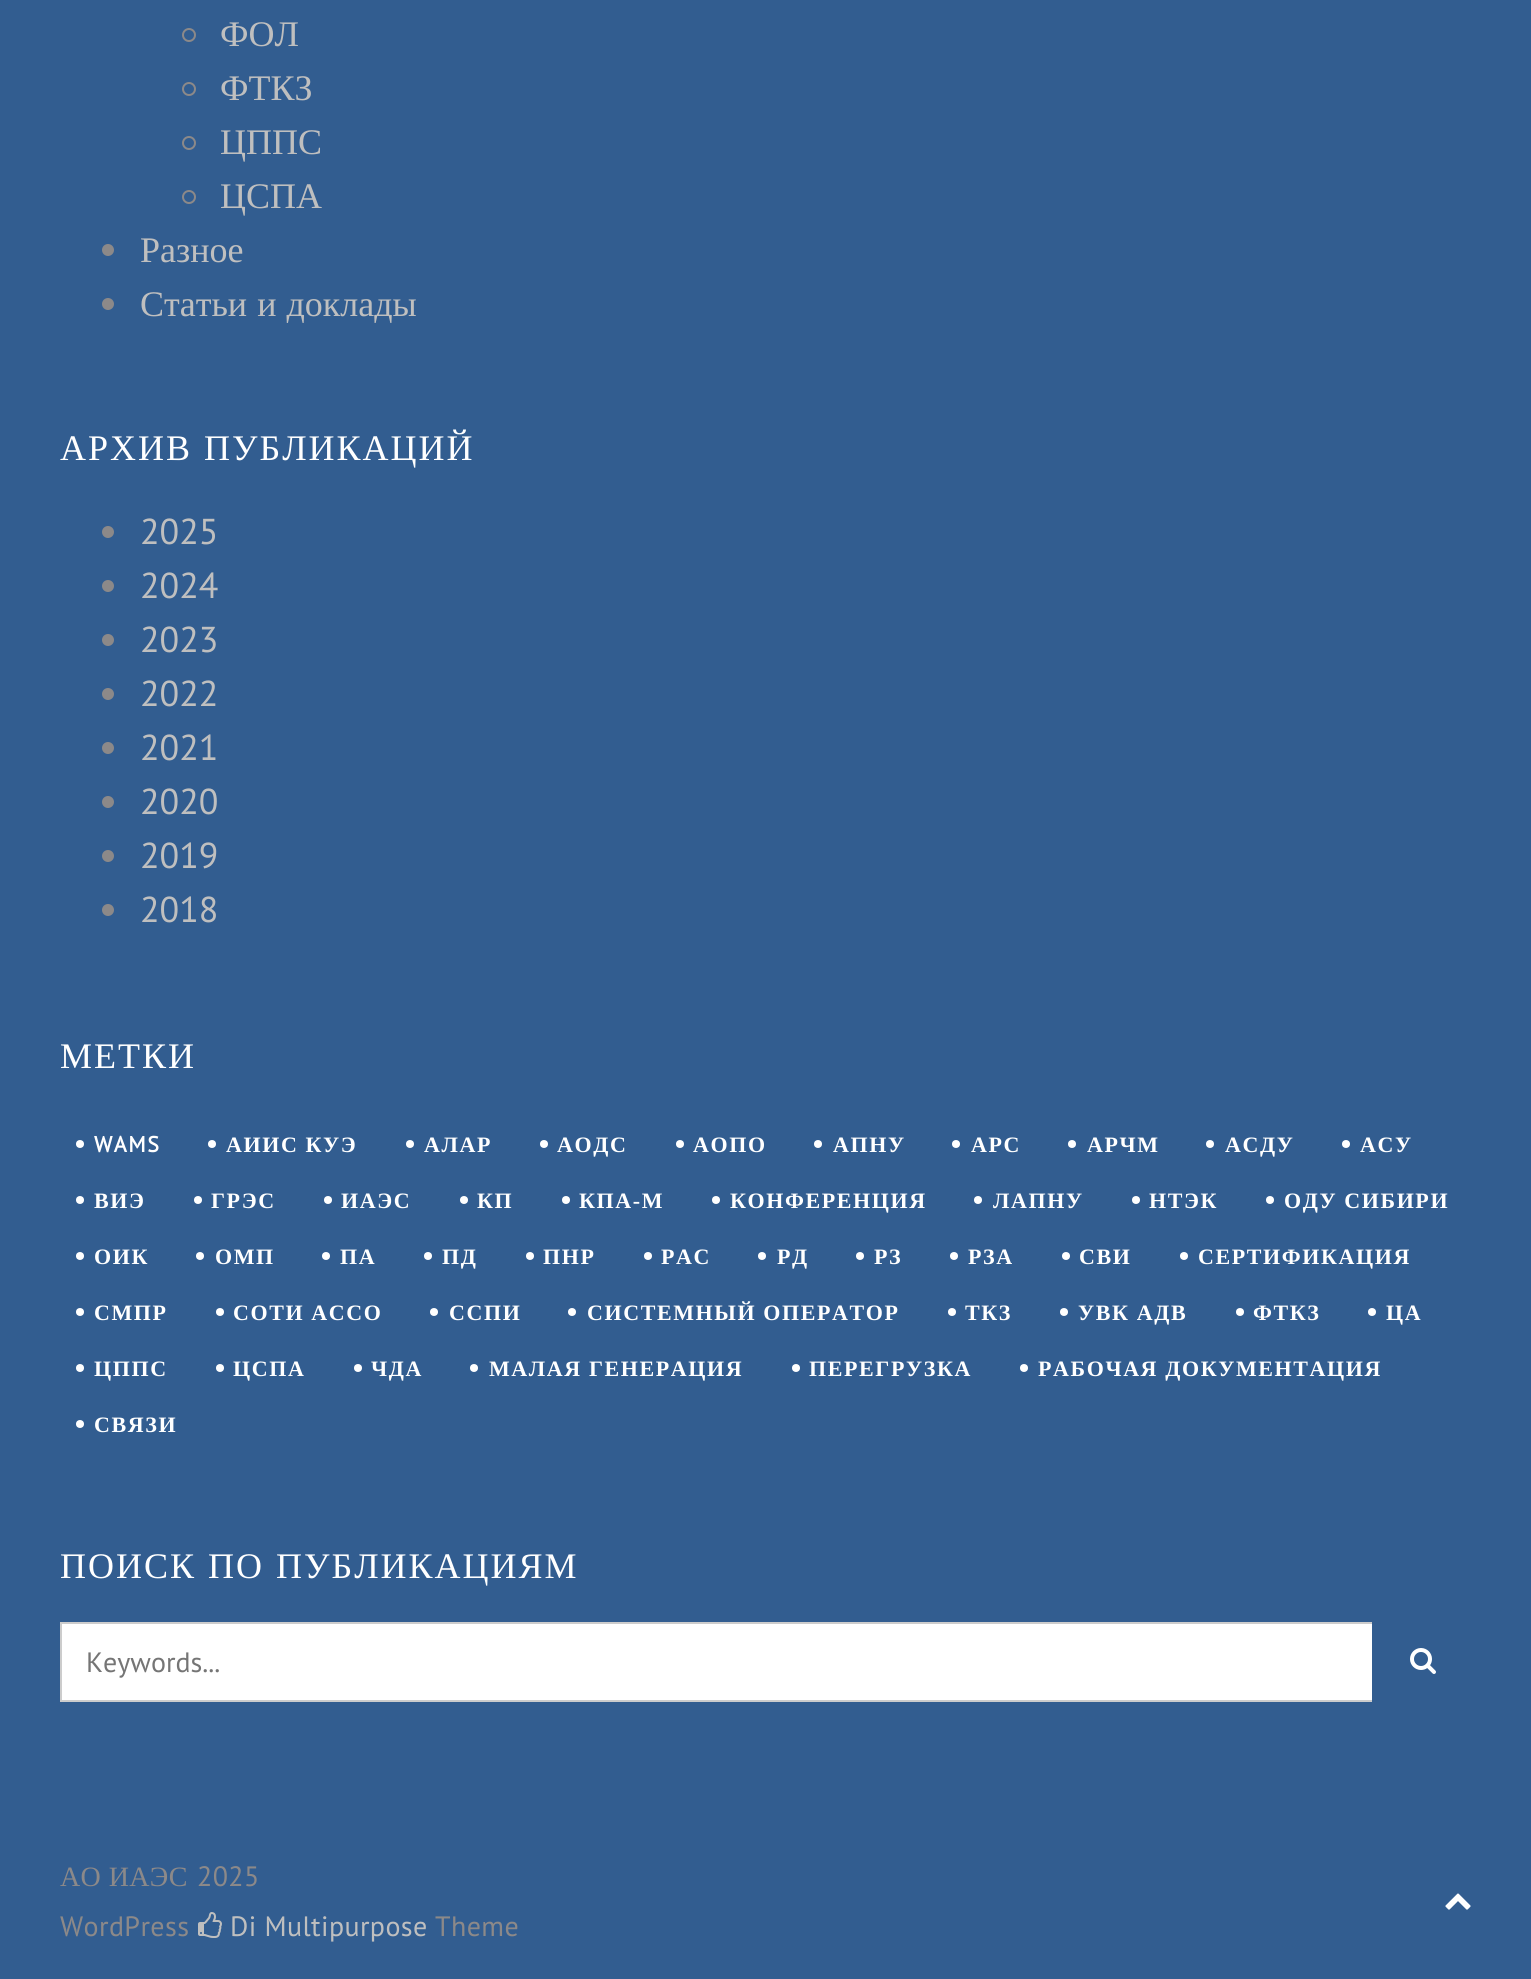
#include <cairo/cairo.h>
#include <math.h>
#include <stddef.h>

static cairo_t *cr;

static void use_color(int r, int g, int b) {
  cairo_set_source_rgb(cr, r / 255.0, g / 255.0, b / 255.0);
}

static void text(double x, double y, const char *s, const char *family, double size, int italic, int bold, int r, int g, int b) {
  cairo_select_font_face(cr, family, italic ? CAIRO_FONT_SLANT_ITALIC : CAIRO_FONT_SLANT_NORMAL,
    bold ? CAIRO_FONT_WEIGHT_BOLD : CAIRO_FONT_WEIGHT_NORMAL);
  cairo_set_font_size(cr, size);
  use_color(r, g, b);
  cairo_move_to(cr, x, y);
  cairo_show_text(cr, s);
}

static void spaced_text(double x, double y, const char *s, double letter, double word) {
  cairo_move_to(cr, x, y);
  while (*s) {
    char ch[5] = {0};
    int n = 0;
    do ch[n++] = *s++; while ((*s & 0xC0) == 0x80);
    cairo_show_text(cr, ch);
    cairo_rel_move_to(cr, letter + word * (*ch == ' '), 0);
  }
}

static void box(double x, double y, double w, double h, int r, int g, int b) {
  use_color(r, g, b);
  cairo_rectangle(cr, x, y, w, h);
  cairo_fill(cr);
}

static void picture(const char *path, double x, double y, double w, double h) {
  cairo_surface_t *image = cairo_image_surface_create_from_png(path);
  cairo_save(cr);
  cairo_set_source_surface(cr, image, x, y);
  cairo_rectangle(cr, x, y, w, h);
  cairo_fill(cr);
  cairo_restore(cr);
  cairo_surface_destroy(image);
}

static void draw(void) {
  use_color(50, 93, 144);
  cairo_paint(cr);
  cairo_arc(cr, 189, 35, 6, 0, 2 * M_PI);
  use_color(140, 137, 137);
  cairo_stroke(cr);
  cairo_arc(cr, 189, 89, 6, 0, 2 * M_PI);
  cairo_stroke(cr);
  cairo_arc(cr, 189, 143, 6, 0, 2 * M_PI);
  cairo_stroke(cr);
  cairo_arc(cr, 189, 197, 6, 0, 2 * M_PI);
  cairo_stroke(cr);
  cairo_arc(cr, 108, 250, 6, 0, 2 * M_PI);
  cairo_fill(cr);
  cairo_arc(cr, 108, 304, 6, 0, 2 * M_PI);
  cairo_fill(cr);
  cairo_arc(cr, 108, 532, 6, 0, 2 * M_PI);
  cairo_fill(cr);
  cairo_arc(cr, 108, 586, 6, 0, 2 * M_PI);
  cairo_fill(cr);
  cairo_arc(cr, 108, 640, 6, 0, 2 * M_PI);
  cairo_fill(cr);
  cairo_arc(cr, 108, 694, 6, 0, 2 * M_PI);
  cairo_fill(cr);
  cairo_arc(cr, 108, 748, 6, 0, 2 * M_PI);
  cairo_fill(cr);
  cairo_arc(cr, 108, 802, 6, 0, 2 * M_PI);
  cairo_fill(cr);
  cairo_arc(cr, 108, 856, 6, 0, 2 * M_PI);
  cairo_fill(cr);
  cairo_arc(cr, 108, 910, 6, 0, 2 * M_PI);
  cairo_fill(cr);
  use_color(255, 255, 255);
  cairo_arc(cr, 80, 1144, 4, 0, 2 * M_PI);
  cairo_fill(cr);
  cairo_arc(cr, 212, 1144, 4, 0, 2 * M_PI);
  cairo_fill(cr);
  cairo_arc(cr, 410, 1144, 4, 0, 2 * M_PI);
  cairo_fill(cr);
  cairo_arc(cr, 544, 1144, 4, 0, 2 * M_PI);
  cairo_fill(cr);
  cairo_arc(cr, 680, 1144, 4, 0, 2 * M_PI);
  cairo_fill(cr);
  cairo_arc(cr, 818, 1144, 4, 0, 2 * M_PI);
  cairo_fill(cr);
  cairo_arc(cr, 956, 1144, 4, 0, 2 * M_PI);
  cairo_fill(cr);
  cairo_arc(cr, 1072, 1144, 4, 0, 2 * M_PI);
  cairo_fill(cr);
  cairo_arc(cr, 1210, 1144, 4, 0, 2 * M_PI);
  cairo_fill(cr);
  cairo_arc(cr, 1346, 1144, 4, 0, 2 * M_PI);
  cairo_fill(cr);
  cairo_arc(cr, 80, 1200, 4, 0, 2 * M_PI);
  cairo_fill(cr);
  cairo_arc(cr, 198, 1200, 4, 0, 2 * M_PI);
  cairo_fill(cr);
  cairo_arc(cr, 328, 1200, 4, 0, 2 * M_PI);
  cairo_fill(cr);
  cairo_arc(cr, 464, 1200, 4, 0, 2 * M_PI);
  cairo_fill(cr);
  cairo_arc(cr, 566, 1200, 4, 0, 2 * M_PI);
  cairo_fill(cr);
  cairo_arc(cr, 716, 1200, 4, 0, 2 * M_PI);
  cairo_fill(cr);
  cairo_arc(cr, 978, 1200, 4, 0, 2 * M_PI);
  cairo_fill(cr);
  cairo_arc(cr, 1136, 1200, 4, 0, 2 * M_PI);
  cairo_fill(cr);
  cairo_arc(cr, 1270, 1200, 4, 0, 2 * M_PI);
  cairo_fill(cr);
  cairo_arc(cr, 80, 1256, 4, 0, 2 * M_PI);
  cairo_fill(cr);
  cairo_arc(cr, 200, 1256, 4, 0, 2 * M_PI);
  cairo_fill(cr);
  cairo_arc(cr, 326, 1256, 4, 0, 2 * M_PI);
  cairo_fill(cr);
  cairo_arc(cr, 428, 1256, 4, 0, 2 * M_PI);
  cairo_fill(cr);
  cairo_arc(cr, 530, 1256, 4, 0, 2 * M_PI);
  cairo_fill(cr);
  cairo_arc(cr, 648, 1256, 4, 0, 2 * M_PI);
  cairo_fill(cr);
  cairo_arc(cr, 762, 1256, 4, 0, 2 * M_PI);
  cairo_fill(cr);
  cairo_arc(cr, 860, 1256, 4, 0, 2 * M_PI);
  cairo_fill(cr);
  cairo_arc(cr, 954, 1256, 4, 0, 2 * M_PI);
  cairo_fill(cr);
  cairo_arc(cr, 1066, 1256, 4, 0, 2 * M_PI);
  cairo_fill(cr);
  cairo_arc(cr, 1184, 1256, 4, 0, 2 * M_PI);
  cairo_fill(cr);
  cairo_arc(cr, 80, 1312, 4, 0, 2 * M_PI);
  cairo_fill(cr);
  cairo_arc(cr, 220, 1312, 4, 0, 2 * M_PI);
  cairo_fill(cr);
  cairo_arc(cr, 434, 1312, 4, 0, 2 * M_PI);
  cairo_fill(cr);
  cairo_arc(cr, 572, 1312, 4, 0, 2 * M_PI);
  cairo_fill(cr);
  cairo_arc(cr, 952, 1312, 4, 0, 2 * M_PI);
  cairo_fill(cr);
  cairo_arc(cr, 1064, 1312, 4, 0, 2 * M_PI);
  cairo_fill(cr);
  cairo_arc(cr, 1240, 1312, 4, 0, 2 * M_PI);
  cairo_fill(cr);
  cairo_arc(cr, 1372, 1312, 4, 0, 2 * M_PI);
  cairo_fill(cr);
  cairo_arc(cr, 80, 1368, 4, 0, 2 * M_PI);
  cairo_fill(cr);
  cairo_arc(cr, 220, 1368, 4, 0, 2 * M_PI);
  cairo_fill(cr);
  cairo_arc(cr, 358, 1368, 4, 0, 2 * M_PI);
  cairo_fill(cr);
  cairo_arc(cr, 474, 1368, 4, 0, 2 * M_PI);
  cairo_fill(cr);
  cairo_arc(cr, 796, 1368, 4, 0, 2 * M_PI);
  cairo_fill(cr);
  cairo_arc(cr, 1024, 1368, 4, 0, 2 * M_PI);
  cairo_fill(cr);
  cairo_arc(cr, 80, 1424, 4, 0, 2 * M_PI);
  cairo_fill(cr);
  box(62, 1624, 1310, 76, 255, 255, 255);
  cairo_rectangle(cr, 61, 1623, 1410, 78);
  use_color(204, 204, 204);
  cairo_stroke(cr);
  box(1372, 1622, 100, 80, 50, 93, 144);
  picture("img_01.png", 1410, 1648, 26, 26);
  picture("img_02.png", 198, 1912, 24, 26);
  picture("img_03.png", 1445, 1893, 26, 17);
  text(220, 46, "ФОЛ", "Liberation Serif", 36, 0, 0, 191, 191, 191);
  text(220, 100, "ФТКЗ", "Liberation Serif", 36, 0, 0, 191, 191, 191);
  text(220, 154, "ЦППС", "Liberation Serif", 36, 0, 0, 191, 191, 191);
  text(220, 208, "ЦСПА", "Liberation Serif", 36, 0, 0, 191, 191, 191);
  text(140, 262, "Разное", "Liberation Serif", 36, 0, 0, 191, 191, 191);
  spaced_text(140, 316, "Статьи и доклады", 0, 1);
  use_color(255, 255, 255);
  spaced_text(60, 460, "АРХИВ ПУБЛИКАЦИЙ", 2, 1);
  text(140, 544, "2025", "PT Sans", 36, 0, 0, 191, 191, 191);
  text(140, 598, "2024", "PT Sans", 36, 0, 0, 191, 191, 191);
  text(140, 652, "2023", "PT Sans", 36, 0, 0, 191, 191, 191);
  text(140, 706, "2022", "PT Sans", 36, 0, 0, 191, 191, 191);
  text(140, 760, "2021", "PT Sans", 36, 0, 0, 191, 191, 191);
  text(140, 814, "2020", "PT Sans", 36, 0, 0, 191, 191, 191);
  text(140, 868, "2019", "PT Sans", 36, 0, 0, 191, 191, 191);
  text(140, 922, "2018", "PT Sans", 36, 0, 0, 191, 191, 191);
  cairo_select_font_face(cr, "Liberation Serif", CAIRO_FONT_SLANT_NORMAL, CAIRO_FONT_WEIGHT_NORMAL);
  use_color(255, 255, 255);
  spaced_text(60, 1068, "МЕТКИ", 2, 0);
  cairo_select_font_face(cr, "PT Sans", CAIRO_FONT_SLANT_NORMAL, CAIRO_FONT_WEIGHT_BOLD);
  cairo_set_font_size(cr, 22);
  spaced_text(94, 1152, "WAMS", 1.6, 0);
  cairo_select_font_face(cr, "Liberation Serif", CAIRO_FONT_SLANT_NORMAL, CAIRO_FONT_WEIGHT_BOLD);
  spaced_text(226, 1152, "АИИС КУЭ", 1.6, 0);
  spaced_text(424, 1152, "АЛАР", 1.6, 0);
  spaced_text(557, 1152, "АОДС", 1.6, 0);
  spaced_text(693, 1152, "АОПО", 1.6, 0);
  spaced_text(833, 1152, "АПНУ", 1.6, 0);
  spaced_text(971, 1152, "АРС", 1.6, 0);
  spaced_text(1087, 1152, "АРЧМ", 1.6, 0);
  spaced_text(1225, 1152, "АСДУ", 1.6, 0);
  spaced_text(1360, 1152, "АСУ", 1.6, 0);
  spaced_text(94, 1208, "ВИЭ", 1.6, 0);
  spaced_text(211, 1208, "ГРЭС", 1.6, 0);
  spaced_text(341, 1208, "ИАЭС", 1.6, 0);
  spaced_text(477, 1208, "КП", 1.6, 0);
  spaced_text(579, 1208, "КПА-М", 1.6, 0);
  spaced_text(730, 1208, "КОНФЕРЕНЦИЯ", 1.6, 0);
  spaced_text(993, 1208, "ЛАПНУ", 1.6, 0);
  spaced_text(1149, 1208, "НТЭК", 1.6, 0);
  spaced_text(1284, 1208, "ОДУ СИБИРИ", 1.6, 0);
  spaced_text(94, 1264, "ОИК", 1.6, 0);
  spaced_text(215, 1264, "ОМП", 1.6, 0);
  spaced_text(340, 1264, "ПА", 1.6, 0);
  spaced_text(442, 1264, "ПД", 1.6, 0);
  spaced_text(543, 1264, "ПНР", 1.6, 0);
  spaced_text(661, 1264, "РАС", 1.6, 0);
  spaced_text(777, 1264, "РД", 1.6, 0);
  spaced_text(874, 1264, "РЗ", 1.6, 0);
  spaced_text(968, 1264, "РЗА", 1.6, 0);
  spaced_text(1079, 1264, "СВИ", 1.6, 0);
  spaced_text(1198, 1264, "СЕРТИФИКАЦИЯ", 1.6, 0);
  spaced_text(94, 1320, "СМПР", 1.6, 0);
  spaced_text(233, 1320, "СОТИ АССО", 1.6, 0);
  spaced_text(449, 1320, "ССПИ", 1.6, 0);
  spaced_text(587, 1320, "СИСТЕМНЫЙ ОПЕРАТОР", 1.6, 0);
  spaced_text(965, 1320, "ТКЗ", 1.6, 0);
  spaced_text(1078, 1320, "УВК АДВ", 1.6, 0);
  spaced_text(1253, 1320, "ФТКЗ", 1.6, 0);
  spaced_text(1386, 1320, "ЦА", 1.6, 0);
  spaced_text(94, 1376, "ЦППС", 1.6, 0);
  spaced_text(233, 1376, "ЦСПА", 1.6, 0);
  spaced_text(371, 1376, "ЧДА", 1.6, 0);
  spaced_text(489, 1376, "МАЛАЯ ГЕНЕРАЦИЯ", 1.6, 0);
  spaced_text(809, 1376, "ПЕРЕГРУЗКА", 1.6, 0);
  spaced_text(1038, 1376, "РАБОЧАЯ ДОКУМЕНТАЦИЯ", 1.6, 0);
  spaced_text(94, 1432, "СВЯЗИ", 1.6, 0);
  cairo_select_font_face(cr, "Liberation Serif", CAIRO_FONT_SLANT_NORMAL, CAIRO_FONT_WEIGHT_NORMAL);
  cairo_set_font_size(cr, 36);
  spaced_text(60, 1578, "ПОИСК ПО ПУБЛИКАЦИЯМ", 2, 1);
  text(86, 1672, "Keywords...", "PT Sans", 28, 0, 0, 117, 117, 117);
  cairo_select_font_face(cr, "Liberation Serif", CAIRO_FONT_SLANT_NORMAL, CAIRO_FONT_WEIGHT_NORMAL);
  use_color(140, 137, 137);
  spaced_text(60, 1886, "АО ИАЭС", 0.4, 0);
  cairo_select_font_face(cr, "PT Sans", CAIRO_FONT_SLANT_NORMAL, CAIRO_FONT_WEIGHT_NORMAL);
  spaced_text(197, 1886, "2025", 0.4, 0);
  spaced_text(60, 1936, "WordPress", 0.4, 0);
  use_color(191, 191, 191);
  spaced_text(230, 1936, "Di Multipurpose", 0.4, 0);
  use_color(140, 137, 137);
  spaced_text(435, 1936, "Theme", 0.4, 0);
}

int main(void) {
  cairo_surface_t *surface = cairo_image_surface_create(CAIRO_FORMAT_RGB24, 1531, 1979);
  cr = cairo_create(surface);
  cairo_font_options_t *options = cairo_font_options_create();
  cairo_font_options_set_hint_metrics(options, CAIRO_HINT_METRICS_OFF);
  cairo_font_options_set_hint_style(options, CAIRO_HINT_STYLE_NONE);
  cairo_set_font_options(cr, options);
  cairo_set_miter_limit(cr, 4);
  draw();
  cairo_surface_write_to_png(surface, "out.png");
  cairo_font_options_destroy(options);
  cairo_destroy(cr);
  cairo_surface_destroy(surface);
  return 0;
}
